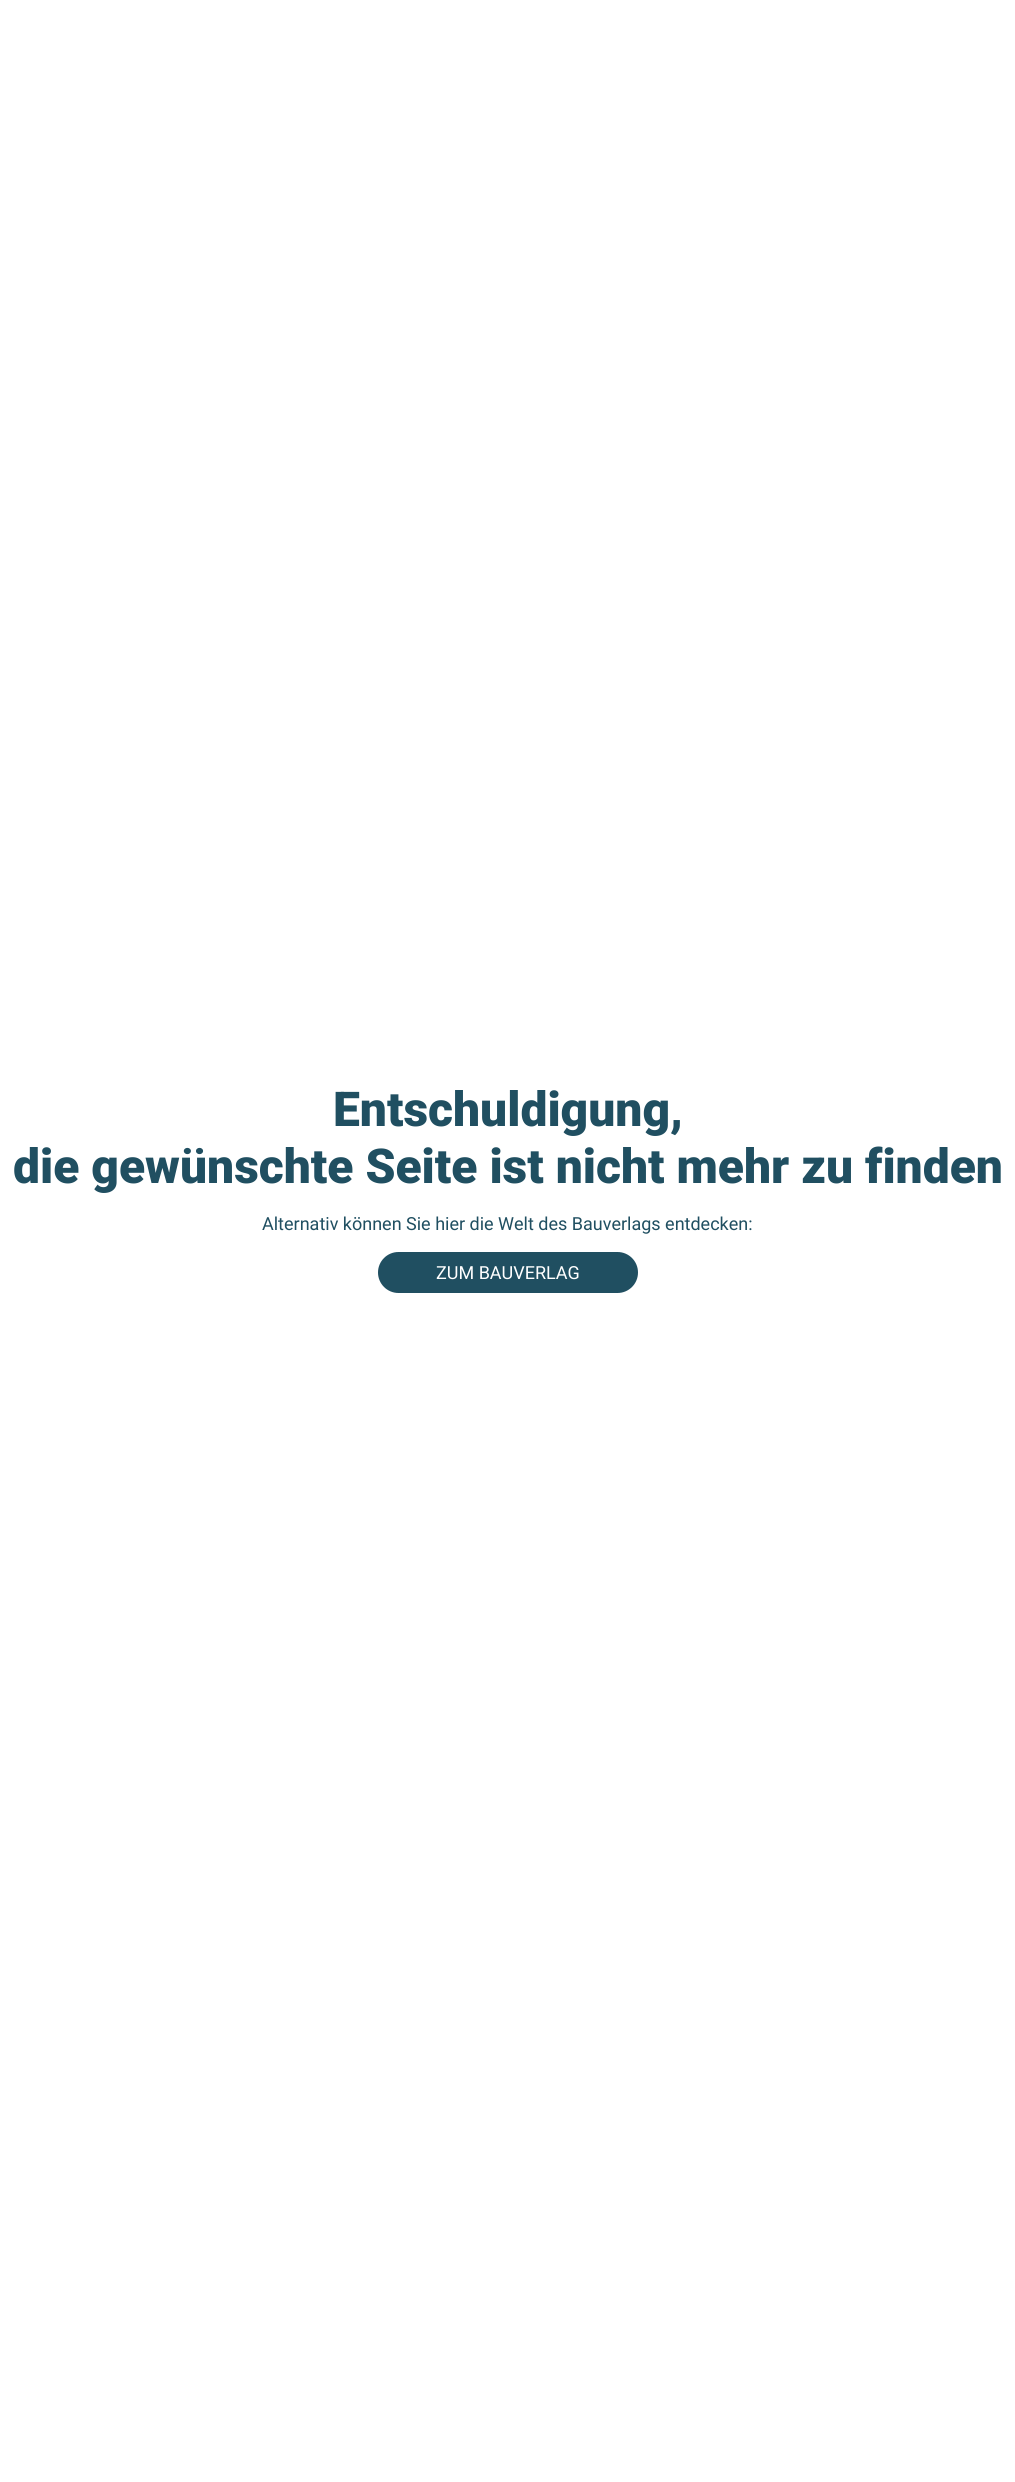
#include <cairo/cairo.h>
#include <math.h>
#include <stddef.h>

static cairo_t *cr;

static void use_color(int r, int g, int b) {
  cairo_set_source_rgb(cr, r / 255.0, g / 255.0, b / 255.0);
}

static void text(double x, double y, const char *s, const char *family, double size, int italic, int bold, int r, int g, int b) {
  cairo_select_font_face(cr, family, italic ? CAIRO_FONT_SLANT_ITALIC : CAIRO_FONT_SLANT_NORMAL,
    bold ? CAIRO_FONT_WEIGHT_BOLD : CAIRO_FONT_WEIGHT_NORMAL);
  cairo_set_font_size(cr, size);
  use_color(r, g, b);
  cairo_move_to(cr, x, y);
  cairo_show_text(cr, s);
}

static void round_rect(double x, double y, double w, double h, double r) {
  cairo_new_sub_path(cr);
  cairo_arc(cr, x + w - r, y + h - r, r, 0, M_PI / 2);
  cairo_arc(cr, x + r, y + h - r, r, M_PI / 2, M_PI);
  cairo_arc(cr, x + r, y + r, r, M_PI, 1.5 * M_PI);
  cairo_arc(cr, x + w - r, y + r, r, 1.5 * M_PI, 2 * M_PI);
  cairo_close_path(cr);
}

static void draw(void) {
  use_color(255, 255, 255);
  cairo_paint(cr);
  use_color(32, 79, 97);
  round_rect(378, 1252, 260, 41, 20.5);
  cairo_fill(cr);
  text(333, 1126, "Entschuldigung,", "Roboto Black", 48, 0, 0, 32, 79, 97);
  text(13, 1183, "die gewünschte Seite ist nicht mehr zu finden", "Roboto Black", 48, 0, 0, 32, 79, 97);
  text(262, 1230, "Alternativ können Sie hier die Welt des Bauverlags entdecken:", "Roboto", 18, 0, 0, 32, 79, 97);
  text(436, 1279, "ZUM BAUVERLAG", "Roboto", 18, 0, 0, 255, 255, 255);
}

int main(void) {
  cairo_surface_t *surface = cairo_image_surface_create(CAIRO_FORMAT_RGB24, 1015, 2482);
  cr = cairo_create(surface);
  cairo_font_options_t *options = cairo_font_options_create();
  cairo_font_options_set_hint_metrics(options, CAIRO_HINT_METRICS_OFF);
  cairo_font_options_set_hint_style(options, CAIRO_HINT_STYLE_NONE);
  cairo_set_font_options(cr, options);
  cairo_set_miter_limit(cr, 4);
  draw();
  cairo_surface_write_to_png(surface, "out.png");
  cairo_font_options_destroy(options);
  cairo_destroy(cr);
  cairo_surface_destroy(surface);
  return 0;
}
